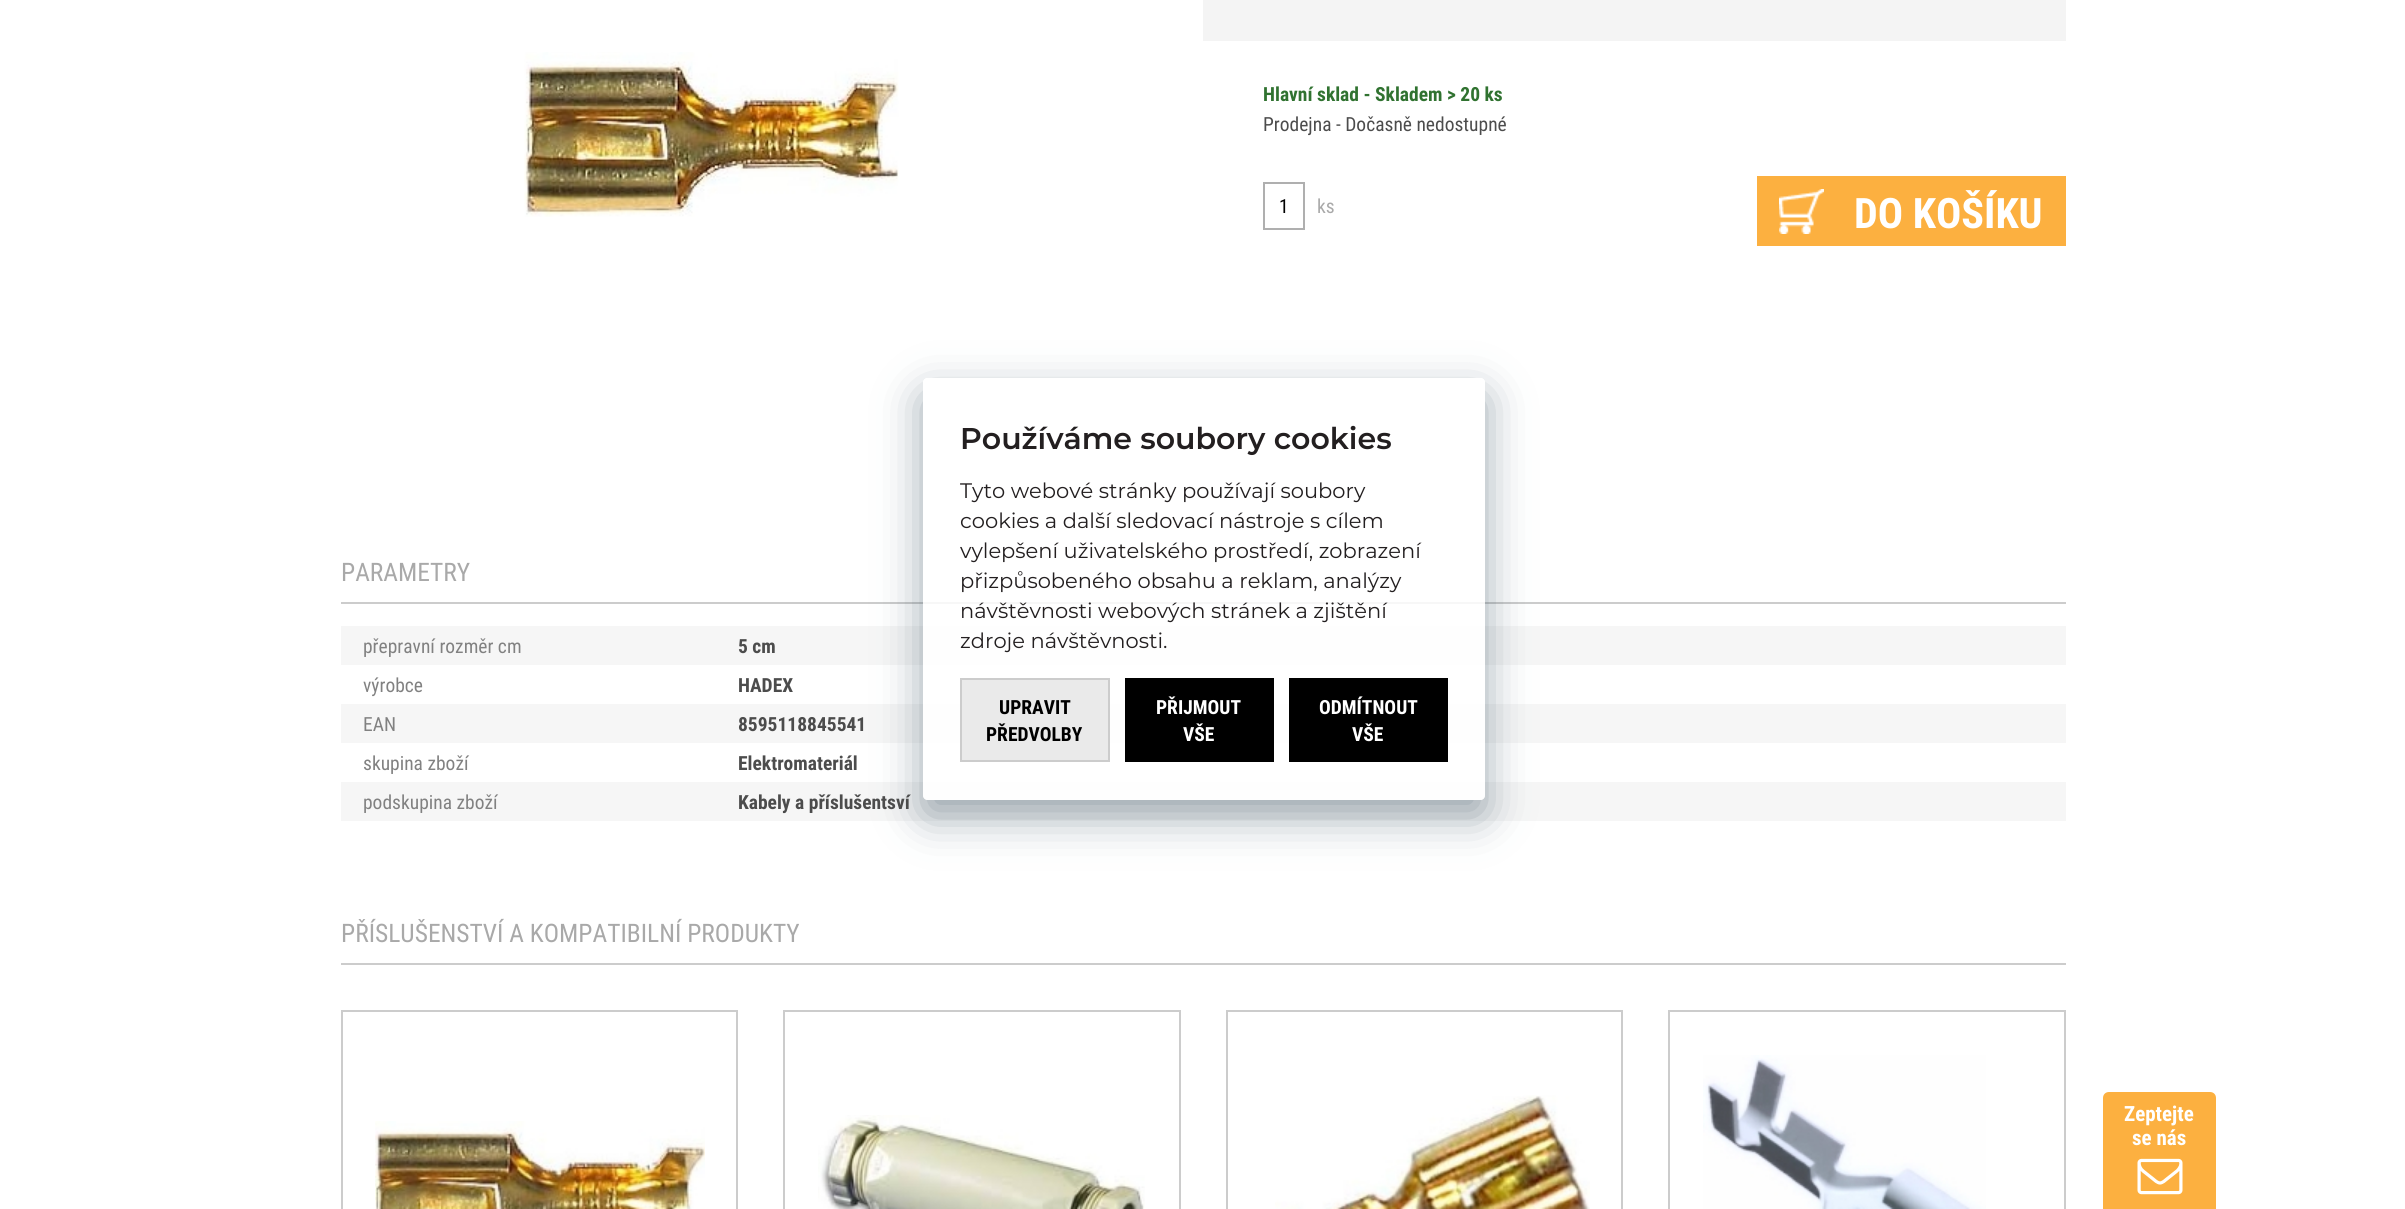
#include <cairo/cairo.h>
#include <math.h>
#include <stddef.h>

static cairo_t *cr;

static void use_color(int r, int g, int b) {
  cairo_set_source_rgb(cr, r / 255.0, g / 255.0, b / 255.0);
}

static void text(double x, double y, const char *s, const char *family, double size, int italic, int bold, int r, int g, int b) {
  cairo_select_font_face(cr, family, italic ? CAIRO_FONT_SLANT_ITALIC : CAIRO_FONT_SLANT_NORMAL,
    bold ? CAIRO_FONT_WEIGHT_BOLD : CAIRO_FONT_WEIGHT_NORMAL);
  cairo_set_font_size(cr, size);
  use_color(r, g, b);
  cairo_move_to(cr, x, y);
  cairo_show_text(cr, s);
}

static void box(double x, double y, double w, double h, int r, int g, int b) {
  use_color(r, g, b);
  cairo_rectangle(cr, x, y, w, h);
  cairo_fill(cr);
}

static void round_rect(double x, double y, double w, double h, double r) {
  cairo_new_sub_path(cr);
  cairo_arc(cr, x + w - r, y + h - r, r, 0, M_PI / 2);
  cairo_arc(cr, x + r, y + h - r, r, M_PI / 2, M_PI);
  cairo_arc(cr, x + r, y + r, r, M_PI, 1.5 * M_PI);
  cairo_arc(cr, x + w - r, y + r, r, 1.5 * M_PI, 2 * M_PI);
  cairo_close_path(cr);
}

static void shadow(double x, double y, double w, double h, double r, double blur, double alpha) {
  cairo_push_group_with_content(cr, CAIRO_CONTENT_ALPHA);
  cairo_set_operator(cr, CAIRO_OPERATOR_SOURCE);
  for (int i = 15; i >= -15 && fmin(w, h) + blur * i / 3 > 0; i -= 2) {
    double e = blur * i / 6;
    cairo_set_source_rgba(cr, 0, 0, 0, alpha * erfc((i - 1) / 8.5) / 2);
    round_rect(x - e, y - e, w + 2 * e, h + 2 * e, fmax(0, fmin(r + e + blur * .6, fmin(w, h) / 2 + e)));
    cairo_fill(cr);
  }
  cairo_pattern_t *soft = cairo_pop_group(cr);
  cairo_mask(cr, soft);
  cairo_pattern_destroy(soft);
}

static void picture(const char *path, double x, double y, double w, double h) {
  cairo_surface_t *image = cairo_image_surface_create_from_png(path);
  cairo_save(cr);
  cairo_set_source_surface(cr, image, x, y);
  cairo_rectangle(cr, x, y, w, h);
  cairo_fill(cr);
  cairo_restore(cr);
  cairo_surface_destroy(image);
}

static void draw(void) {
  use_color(255, 255, 255);
  cairo_paint(cr);
  picture("img_01.png", 524, 52, 375, 165);
  box(1203, 0, 863, 41, 244, 244, 244);
  cairo_rectangle(cr, 1264, 183, 40, 46);
  use_color(175, 175, 175);
  cairo_stroke(cr);
  box(1757, 176, 309, 70, 252, 176, 64);
  picture("img_02.png", 1779, 189, 45, 45);
  box(341, 602, 1725, 2, 204, 204, 204);
  box(341, 626, 1725, 39, 246, 246, 246);
  box(341, 704, 1725, 39, 246, 246, 246);
  box(341, 782, 1725, 39, 246, 246, 246);
  box(341, 963, 1725, 2, 204, 204, 204);
  cairo_rectangle(cr, 342, 1011, 395, 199);
  cairo_stroke(cr);
  picture("img_03.png", 375, 1121, 330, 88);
  cairo_rectangle(cr, 784, 1011, 396, 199);
  cairo_stroke(cr);
  picture("img_04.png", 818, 1115, 327, 94);
  cairo_rectangle(cr, 1227, 1011, 395, 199);
  cairo_stroke(cr);
  picture("img_05.png", 1275, 1095, 315, 114);
  cairo_rectangle(cr, 1669, 1011, 396, 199);
  cairo_stroke(cr);
  picture("img_06.png", 1703, 1055, 283, 154);
  cairo_save(cr);
  cairo_set_fill_rule(cr, CAIRO_FILL_RULE_EVEN_ODD);
  cairo_new_path(cr);
  cairo_move_to(cr, 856, 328);
  cairo_line_to(cr, 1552, 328);
  cairo_line_to(cr, 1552, 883);
  cairo_line_to(cr, 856, 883);
  cairo_close_path(cr);
  cairo_move_to(cr, 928, 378);
  cairo_line_to(cr, 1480, 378);
  cairo_curve_to(cr, 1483, 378, 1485, 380, 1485, 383);
  cairo_line_to(cr, 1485, 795);
  cairo_curve_to(cr, 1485, 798, 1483, 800, 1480, 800);
  cairo_line_to(cr, 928, 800);
  cairo_curve_to(cr, 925, 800, 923, 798, 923, 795);
  cairo_line_to(cr, 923, 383);
  cairo_curve_to(cr, 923, 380, 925, 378, 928, 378);
  cairo_close_path(cr);
  cairo_clip(cr);
  use_color(56, 80, 97);
  shadow(923, 395, 562, 421, 5, 22, 0.5);
  cairo_restore(cr);
  cairo_set_source_rgba(cr, 1, 1, 1, 0.85);
  round_rect(923, 378, 562, 422, 5);
  cairo_fill(cr);
  use_color(234, 234, 234);
  cairo_rectangle(cr, 961, 679, 148, 82);
  cairo_fill_preserve(cr);
  use_color(204, 204, 204);
  cairo_stroke(cr);
  box(1125, 678, 149, 84, 0, 0, 0);
  box(1289, 678, 159, 84, 0, 0, 0);
  use_color(252, 176, 64);
  cairo_new_path(cr);
  cairo_move_to(cr, 2109, 1092);
  cairo_line_to(cr, 2210, 1092);
  cairo_curve_to(cr, 2213.5, 1092, 2216, 1094.5, 2216, 1098);
  cairo_line_to(cr, 2216, 1209);
  cairo_line_to(cr, 2103, 1209);
  cairo_line_to(cr, 2103, 1098);
  cairo_curve_to(cr, 2103, 1094.5, 2105.5, 1092, 2109, 1092);
  cairo_close_path(cr);
  cairo_fill(cr);
  picture("img_07.png", 2137, 1158, 46, 37);
  text(1263, 101, "Hlavní sklad - Skladem > 20 ks", "Roboto Condensed", 19.5, 0, 1, 48, 114, 48);
  text(1263, 131, "Prodejna - Dočasně nedostupné", "Roboto Condensed", 19.5, 0, 0, 76, 76, 76);
  text(1279, 213, "1", "Roboto Condensed", 19.5, 0, 0, 0, 0, 0);
  text(1317, 213, "ks", "Roboto Condensed", 19.5, 0, 0, 169, 169, 169);
  text(1854, 228, "DO KOŠÍKU", "Roboto Condensed", 42, 0, 1, 255, 255, 255);
  text(341, 581, "PARAMETRY", "Roboto Condensed", 25.5, 0, 0, 169, 169, 169);
  text(363, 653, "přepravní rozměr cm", "Roboto Condensed", 19.5, 0, 0, 129, 129, 129);
  text(738, 653, "5 cm", "Roboto Condensed", 19.5, 0, 1, 76, 76, 76);
  text(363, 692, "výrobce", "Roboto Condensed", 19.5, 0, 0, 129, 129, 129);
  text(738, 692, "HADEX", "Roboto Condensed", 19.5, 0, 1, 76, 76, 76);
  text(363, 731, "EAN", "Roboto Condensed", 19.5, 0, 0, 129, 129, 129);
  text(738, 731, "8595118845541", "Roboto Condensed", 19.5, 0, 1, 76, 76, 76);
  text(363, 770, "skupina zboží", "Roboto Condensed", 19.5, 0, 0, 129, 129, 129);
  text(738, 770, "Elektromateriál", "Roboto Condensed", 19.5, 0, 1, 76, 76, 76);
  text(363, 809, "podskupina zboží", "Roboto Condensed", 19.5, 0, 0, 129, 129, 129);
  text(738, 809, "Kabely a příslušentsví", "Roboto Condensed", 19.5, 0, 1, 76, 76, 76);
  text(341, 942, "PŘÍSLUŠENSTVÍ A KOMPATIBILNÍ PRODUKTY", "Roboto Condensed", 25.5, 0, 0, 169, 169, 169);
  text(960, 449, "Používáme soubory cookies", "Montserrat SemiBold", 30, 0, 0, 35, 31, 32);
  text(960, 498, "Tyto webové stránky používají soubory", "Montserrat", 21, 0, 0, 35, 31, 32);
  text(960, 528, "cookies a další sledovací nástroje s cílem", "Montserrat", 21, 0, 0, 35, 31, 32);
  text(960, 558, "vylepšení uživatelského prostředí, zobrazení", "Montserrat", 21, 0, 0, 35, 31, 32);
  text(960, 588, "přizpůsobeného obsahu a reklam, analýzy", "Montserrat", 21, 0, 0, 35, 31, 32);
  text(960, 618, "návštěvnosti webových stránek a zjištění", "Montserrat", 21, 0, 0, 35, 31, 32);
  text(960, 648, "zdroje návštěvnosti.", "Montserrat", 21, 0, 0, 35, 31, 32);
  text(999, 714, "UPRAVIT", "Roboto Condensed", 19.5, 0, 1, 0, 0, 0);
  text(986, 741, "PŘEDVOLBY", "Roboto Condensed", 19.5, 0, 1, 0, 0, 0);
  text(1156, 714, "PŘIJMOUT", "Roboto Condensed", 19.5, 0, 1, 255, 255, 255);
  text(1183, 741, "VŠE", "Roboto Condensed", 19.5, 0, 1, 255, 255, 255);
  text(1319, 714, "ODMÍTNOUT", "Roboto Condensed", 19.5, 0, 1, 255, 255, 255);
  text(1352, 741, "VŠE", "Roboto Condensed", 19.5, 0, 1, 255, 255, 255);
  text(2124, 1121, "Zeptejte", "Roboto Condensed", 21, 0, 1, 255, 255, 255);
  text(2132, 1145, "se nás", "Roboto Condensed", 21, 0, 1, 255, 255, 255);
}

int main(void) {
  cairo_surface_t *surface = cairo_image_surface_create(CAIRO_FORMAT_RGB24, 2405, 1209);
  cr = cairo_create(surface);
  cairo_font_options_t *options = cairo_font_options_create();
  cairo_font_options_set_hint_metrics(options, CAIRO_HINT_METRICS_OFF);
  cairo_font_options_set_hint_style(options, CAIRO_HINT_STYLE_NONE);
  cairo_set_font_options(cr, options);
  cairo_set_miter_limit(cr, 4);
  draw();
  cairo_surface_write_to_png(surface, "out.png");
  cairo_font_options_destroy(options);
  cairo_destroy(cr);
  cairo_surface_destroy(surface);
  return 0;
}
